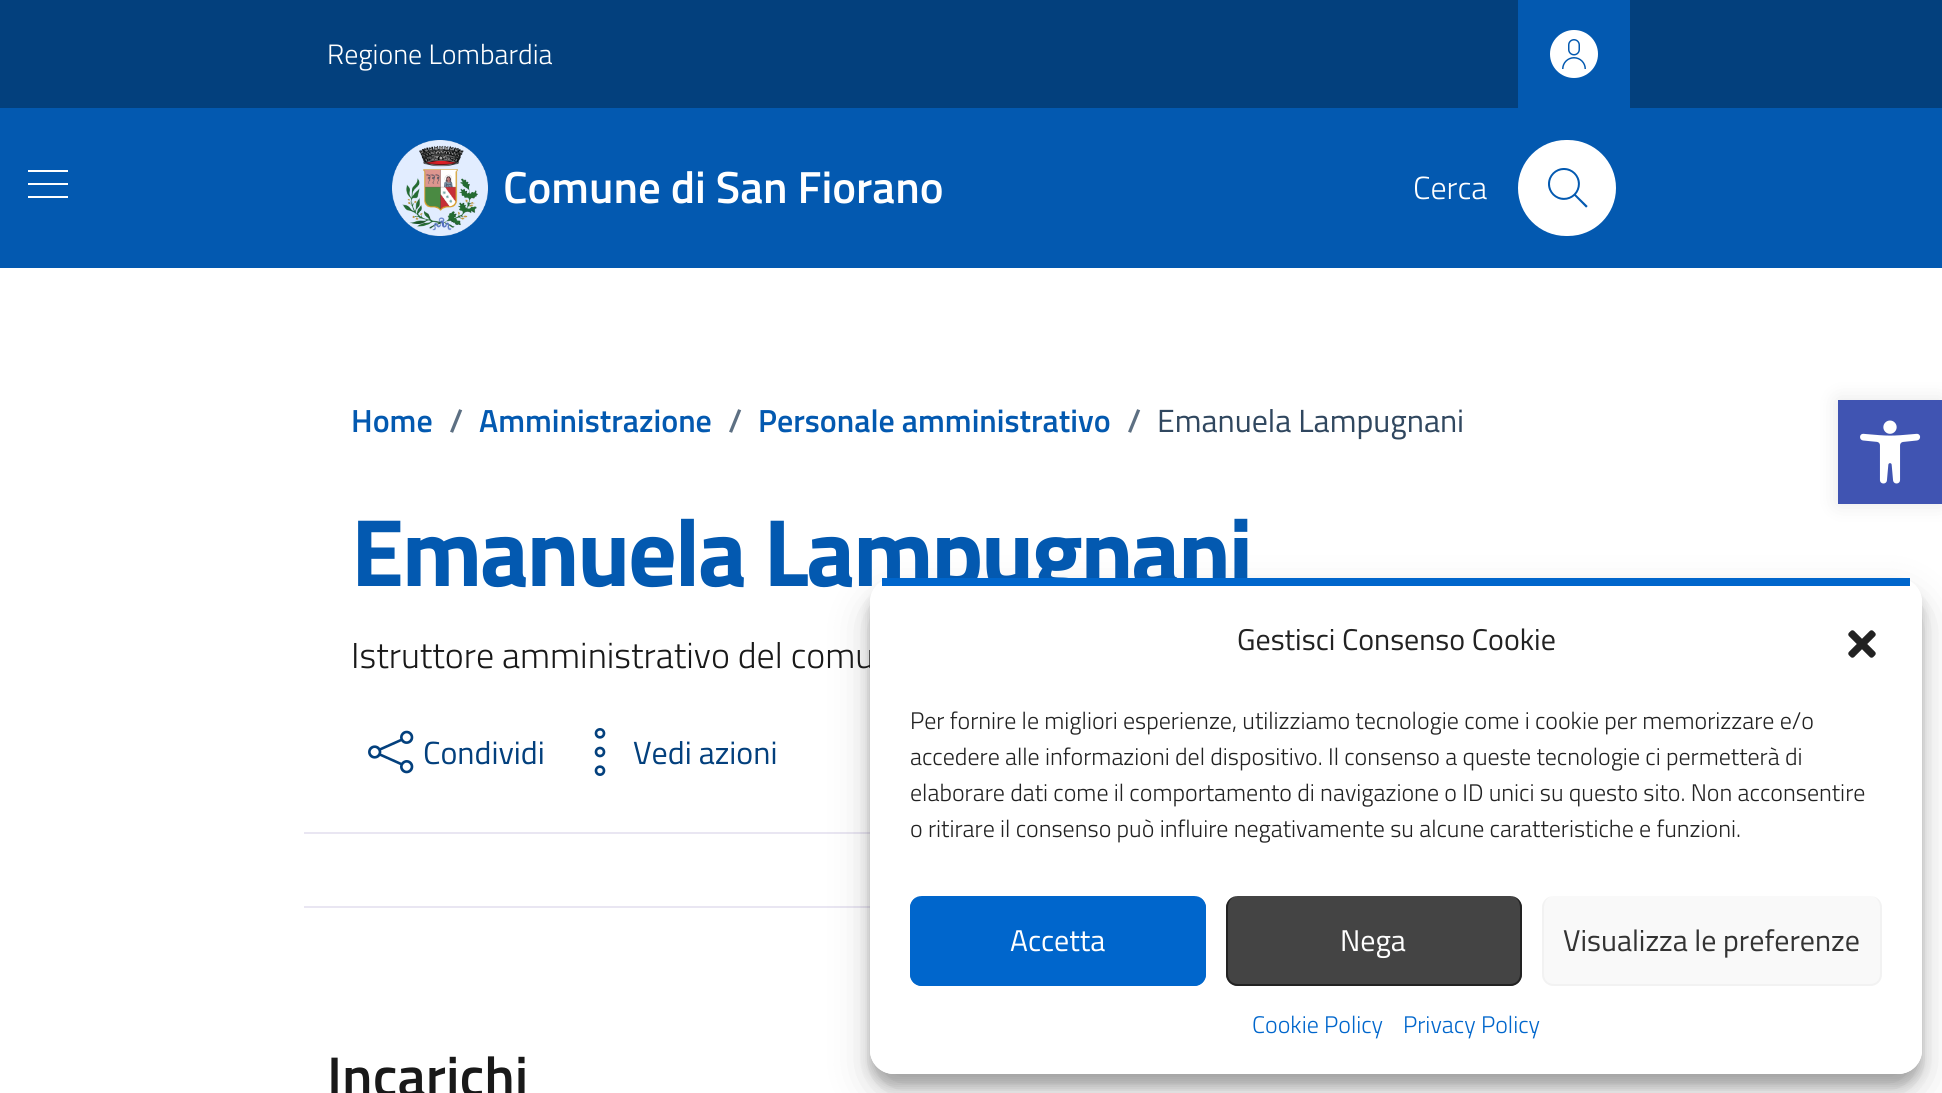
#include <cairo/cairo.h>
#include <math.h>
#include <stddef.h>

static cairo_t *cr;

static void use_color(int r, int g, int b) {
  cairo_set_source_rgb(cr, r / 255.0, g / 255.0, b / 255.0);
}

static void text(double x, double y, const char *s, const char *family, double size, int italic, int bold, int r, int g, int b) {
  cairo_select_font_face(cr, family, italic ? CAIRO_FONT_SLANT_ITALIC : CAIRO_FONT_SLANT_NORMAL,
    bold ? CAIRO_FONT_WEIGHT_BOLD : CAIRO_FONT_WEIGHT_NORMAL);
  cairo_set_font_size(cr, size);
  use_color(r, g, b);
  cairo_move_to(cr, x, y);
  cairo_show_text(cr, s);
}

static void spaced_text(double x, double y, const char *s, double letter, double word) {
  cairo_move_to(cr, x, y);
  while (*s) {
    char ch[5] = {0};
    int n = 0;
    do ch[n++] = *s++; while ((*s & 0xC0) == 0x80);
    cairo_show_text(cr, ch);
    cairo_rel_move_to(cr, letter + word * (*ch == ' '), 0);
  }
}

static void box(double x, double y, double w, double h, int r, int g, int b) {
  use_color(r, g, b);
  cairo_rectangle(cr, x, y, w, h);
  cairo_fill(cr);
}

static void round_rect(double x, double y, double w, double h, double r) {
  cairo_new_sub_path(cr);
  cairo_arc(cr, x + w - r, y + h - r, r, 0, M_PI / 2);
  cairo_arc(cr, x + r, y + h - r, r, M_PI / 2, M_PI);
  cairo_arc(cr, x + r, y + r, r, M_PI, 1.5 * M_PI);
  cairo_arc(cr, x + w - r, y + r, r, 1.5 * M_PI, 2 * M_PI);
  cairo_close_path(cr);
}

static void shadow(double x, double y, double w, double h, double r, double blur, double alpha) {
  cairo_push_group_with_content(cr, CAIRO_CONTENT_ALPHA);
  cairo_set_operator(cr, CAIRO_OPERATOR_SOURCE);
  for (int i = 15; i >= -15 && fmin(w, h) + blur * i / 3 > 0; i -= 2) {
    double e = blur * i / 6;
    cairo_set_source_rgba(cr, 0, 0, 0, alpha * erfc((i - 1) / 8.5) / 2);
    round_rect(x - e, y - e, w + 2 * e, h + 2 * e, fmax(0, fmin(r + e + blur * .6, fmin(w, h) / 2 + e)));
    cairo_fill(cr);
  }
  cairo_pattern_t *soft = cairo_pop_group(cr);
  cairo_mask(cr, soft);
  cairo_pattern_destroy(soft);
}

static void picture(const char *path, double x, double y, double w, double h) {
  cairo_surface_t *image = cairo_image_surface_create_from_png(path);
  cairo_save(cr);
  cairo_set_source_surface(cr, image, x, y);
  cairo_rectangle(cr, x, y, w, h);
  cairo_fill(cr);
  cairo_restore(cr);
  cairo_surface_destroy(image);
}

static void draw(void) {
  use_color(255, 255, 255);
  cairo_paint(cr);
  box(0, 0, 1942, 108, 3, 64, 125);
  box(1518, 0, 112, 108, 3, 89, 176);
  use_color(255, 255, 255);
  cairo_arc(cr, 1574, 54, 24, 0, 2 * M_PI);
  cairo_fill(cr);
  picture("img_01.png", 1562, 39, 24, 30);
  box(0, 108, 1942, 160, 3, 89, 176);
  use_color(255, 255, 255);
  cairo_new_path(cr);
  cairo_move_to(cr, 68, 170);
  cairo_line_to(cr, 68, 172);
  cairo_line_to(cr, 28, 172);
  cairo_line_to(cr, 28, 170);
  cairo_close_path(cr);
  cairo_move_to(cr, 28, 185);
  cairo_line_to(cr, 68, 185);
  cairo_line_to(cr, 68, 183);
  cairo_line_to(cr, 28, 183);
  cairo_close_path(cr);
  cairo_move_to(cr, 28, 198);
  cairo_line_to(cr, 68, 198);
  cairo_line_to(cr, 68, 196);
  cairo_line_to(cr, 28, 196);
  cairo_close_path(cr);
  cairo_fill(cr);
  picture("img_02.png", 392, 140, 96, 96);
  round_rect(1518, 140, 98, 96, 48);
  cairo_fill(cr);
  picture("img_03.png", 1548, 168, 40, 40);
  picture("img_04.png", 368, 730, 46, 44);
  picture("img_05.png", 594, 728, 12, 48);
  box(304, 832, 566, 2, 233, 230, 242);
  box(304, 906, 566, 2, 233, 230, 242);
  use_color(0, 0, 0);
  shadow(1838, 400, 104, 104, 0, 10, 0.1);
  box(1838, 400, 104, 104, 64, 84, 178);
  picture("img_06.png", 1860, 420, 61, 64);
  cairo_save(cr);
  cairo_set_fill_rule(cr, CAIRO_FILL_RULE_EVEN_ODD);
  cairo_new_path(cr);
  cairo_move_to(cr, 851, 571);
  cairo_line_to(cr, 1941, 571);
  cairo_line_to(cr, 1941, 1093);
  cairo_line_to(cr, 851, 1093);
  cairo_close_path(cr);
  cairo_move_to(cr, 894, 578);
  cairo_line_to(cr, 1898, 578);
  cairo_curve_to(cr, 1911.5, 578, 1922, 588.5, 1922, 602);
  cairo_line_to(cr, 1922, 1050);
  cairo_curve_to(cr, 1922, 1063.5, 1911.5, 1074, 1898, 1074);
  cairo_line_to(cr, 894, 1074);
  cairo_curve_to(cr, 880.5, 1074, 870, 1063.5, 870, 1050);
  cairo_line_to(cr, 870, 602);
  cairo_curve_to(cr, 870, 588.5, 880.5, 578, 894, 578);
  cairo_close_path(cr);
  cairo_clip(cr);
  use_color(0, 0, 0);
  shadow(870, 590, 1052, 496, 24, 6, 0.23);
  cairo_restore(cr);
  cairo_save(cr);
  cairo_set_fill_rule(cr, CAIRO_FILL_RULE_EVEN_ODD);
  cairo_new_path(cr);
  cairo_move_to(cr, 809, 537);
  cairo_line_to(cr, 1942, 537);
  cairo_line_to(cr, 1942, 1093);
  cairo_line_to(cr, 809, 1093);
  cairo_close_path(cr);
  cairo_move_to(cr, 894, 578);
  cairo_line_to(cr, 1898, 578);
  cairo_curve_to(cr, 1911.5, 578, 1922, 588.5, 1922, 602);
  cairo_line_to(cr, 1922, 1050);
  cairo_curve_to(cr, 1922, 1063.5, 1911.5, 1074, 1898, 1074);
  cairo_line_to(cr, 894, 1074);
  cairo_curve_to(cr, 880.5, 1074, 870, 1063.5, 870, 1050);
  cairo_line_to(cr, 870, 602);
  cairo_curve_to(cr, 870, 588.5, 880.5, 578, 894, 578);
  cairo_close_path(cr);
  cairo_clip(cr);
  use_color(0, 0, 0);
  shadow(870, 598, 1052, 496, 24, 20, 0.19);
  cairo_restore(cr);
  text(327, 64, "Regione Lombardia", "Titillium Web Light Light", 28, 0, 0, 255, 255, 255);
  text(503, 203, "Comune di San Fiorano", "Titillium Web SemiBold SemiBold", 45, 0, 0, 255, 255, 255);
  text(1413, 199, "Cerca", "Titillium Web Light Light", 32, 0, 0, 255, 255, 255);
  text(351, 432, "Home", "Titillium Web SemiBold SemiBold", 32, 0, 0, 3, 89, 176);
  text(449, 432, "/", "Titillium Web SemiBold SemiBold", 32, 0, 0, 93, 112, 131);
  text(479, 432, "Amministrazione", "Titillium Web SemiBold SemiBold", 32, 0, 0, 3, 89, 176);
  text(728, 432, "/", "Titillium Web SemiBold SemiBold", 32, 0, 0, 93, 112, 131);
  text(758, 432, "Personale amministrativo", "Titillium Web SemiBold SemiBold", 32, 0, 0, 3, 89, 176);
  text(1127, 432, "/", "Titillium Web SemiBold SemiBold", 32, 0, 0, 93, 112, 131);
  text(1157, 432, "Emanuela Lampugnani", "Titillium Web", 32, 0, 0, 48, 71, 95);
  cairo_select_font_face(cr, "Titillium Web", CAIRO_FONT_SLANT_NORMAL, CAIRO_FONT_WEIGHT_BOLD);
  cairo_set_font_size(cr, 96);
  use_color(3, 89, 176);
  spaced_text(351, 586, "Emanuela Lampugnani", -2.4, 0);
  text(351, 668, "Istruttore amministrativo del comu", "Titillium Web Light Light", 36, 0, 0, 25, 25, 25);
  text(423, 764, "Condividi", "Titillium Web", 32, 0, 0, 3, 64, 125);
  text(633, 764, "Vedi azioni", "Titillium Web", 32, 0, 0, 3, 64, 125);
  text(327, 1096, "Incarichi", "Titillium Web SemiBold SemiBold", 56, 0, 0, 25, 25, 25);
  use_color(255, 255, 255);
  cairo_new_path(cr);
  cairo_move_to(cr, 894, 586);
  cairo_line_to(cr, 1898, 586);
  cairo_curve_to(cr, 1911, 586, 1922, 593, 1922, 602);
  cairo_line_to(cr, 1922, 1050);
  cairo_curve_to(cr, 1922, 1063, 1911, 1074, 1898, 1074);
  cairo_line_to(cr, 894, 1074);
  cairo_curve_to(cr, 881, 1074, 870, 1063, 870, 1050);
  cairo_line_to(cr, 870, 602);
  cairo_curve_to(cr, 870, 593, 881, 586, 894, 586);
  cairo_close_path(cr);
  cairo_fill(cr);
  box(882, 578, 1028, 8, 0, 102, 204);
  text(1237, 650, "Gestisci Consenso Cookie", "Titillium Web", 30, 0, 0, 34, 34, 34);
  picture("img_07.png", 1848, 630, 28, 28);
  text(910, 729, "Per fornire le migliori esperienze, utilizziamo tecnologie come i cookie per memorizzare e/o", "Titillium Web Light Light", 24, 0, 0, 34, 34, 34);
  text(910, 765, "accedere alle informazioni del dispositivo. Il consenso a queste tecnologie ci permetterà di", "Titillium Web Light Light", 24, 0, 0, 34, 34, 34);
  text(910, 801, "elaborare dati come il comportamento di navigazione o ID unici su questo sito. Non acconsentire", "Titillium Web Light Light", 24, 0, 0, 34, 34, 34);
  text(910, 837, "o ritirare il consenso può influire negativamente su alcune caratteristiche e funzioni.", "Titillium Web Light Light", 24, 0, 0, 34, 34, 34);
  use_color(0, 102, 204);
  round_rect(910, 896, 296, 90, 12);
  cairo_fill(cr);
  cairo_set_fill_rule(cr, CAIRO_FILL_RULE_EVEN_ODD);
  cairo_new_path(cr);
  cairo_move_to(cr, 922, 896);
  cairo_line_to(cr, 1194, 896);
  cairo_curve_to(cr, 1201, 896, 1206, 901, 1206, 908);
  cairo_line_to(cr, 1206, 974);
  cairo_curve_to(cr, 1206, 981, 1201, 986, 1194, 986);
  cairo_line_to(cr, 922, 986);
  cairo_curve_to(cr, 915, 986, 910, 981, 910, 974);
  cairo_line_to(cr, 910, 908);
  cairo_curve_to(cr, 910, 901, 915, 896, 922, 896);
  cairo_close_path(cr);
  cairo_move_to(cr, 922, 896);
  cairo_line_to(cr, 1194, 896);
  cairo_curve_to(cr, 1200, 896, 1204, 901, 1204, 908);
  cairo_line_to(cr, 1204, 974);
  cairo_curve_to(cr, 1204, 980, 1200, 984, 1194, 984);
  cairo_line_to(cr, 922, 984);
  cairo_curve_to(cr, 916, 984, 912, 980, 912, 974);
  cairo_line_to(cr, 912, 908);
  cairo_curve_to(cr, 912, 901, 916, 896, 922, 896);
  cairo_close_path(cr);
  cairo_fill(cr);
  text(1010, 951, "Accetta", "Titillium Web", 30, 0, 0, 255, 255, 255);
  use_color(68, 68, 68);
  round_rect(1226, 896, 296, 90, 12);
  cairo_fill(cr);
  use_color(34, 34, 34);
  cairo_new_path(cr);
  cairo_move_to(cr, 1238, 896);
  cairo_line_to(cr, 1510, 896);
  cairo_curve_to(cr, 1517, 896, 1522, 901, 1522, 908);
  cairo_line_to(cr, 1522, 974);
  cairo_curve_to(cr, 1522, 981, 1517, 986, 1510, 986);
  cairo_line_to(cr, 1238, 986);
  cairo_curve_to(cr, 1231, 986, 1226, 981, 1226, 974);
  cairo_line_to(cr, 1226, 908);
  cairo_curve_to(cr, 1226, 901, 1231, 896, 1238, 896);
  cairo_close_path(cr);
  cairo_move_to(cr, 1238, 896);
  cairo_line_to(cr, 1510, 896);
  cairo_curve_to(cr, 1516, 896, 1520, 901, 1520, 908);
  cairo_line_to(cr, 1520, 974);
  cairo_curve_to(cr, 1520, 980, 1516, 984, 1510, 984);
  cairo_line_to(cr, 1238, 984);
  cairo_curve_to(cr, 1232, 984, 1228, 980, 1228, 974);
  cairo_line_to(cr, 1228, 908);
  cairo_curve_to(cr, 1228, 901, 1232, 896, 1238, 896);
  cairo_close_path(cr);
  cairo_fill(cr);
  text(1340, 951, "Nega", "Titillium Web", 30, 0, 0, 255, 255, 255);
  use_color(249, 249, 249);
  round_rect(1542, 896, 340, 90, 12);
  cairo_fill(cr);
  use_color(242, 242, 242);
  cairo_new_path(cr);
  cairo_move_to(cr, 1554, 896);
  cairo_line_to(cr, 1870, 896);
  cairo_curve_to(cr, 1877, 896, 1882, 901, 1882, 908);
  cairo_line_to(cr, 1882, 974);
  cairo_curve_to(cr, 1882, 981, 1877, 986, 1870, 986);
  cairo_line_to(cr, 1554, 986);
  cairo_curve_to(cr, 1547, 986, 1542, 981, 1542, 974);
  cairo_line_to(cr, 1542, 908);
  cairo_curve_to(cr, 1542, 901, 1547, 896, 1554, 896);
  cairo_close_path(cr);
  cairo_move_to(cr, 1554, 896);
  cairo_line_to(cr, 1870, 896);
  cairo_curve_to(cr, 1876, 896, 1880, 901, 1880, 908);
  cairo_line_to(cr, 1880, 974);
  cairo_curve_to(cr, 1880, 980, 1876, 984, 1870, 984);
  cairo_line_to(cr, 1554, 984);
  cairo_curve_to(cr, 1548, 984, 1544, 980, 1544, 974);
  cairo_line_to(cr, 1544, 908);
  cairo_curve_to(cr, 1544, 901, 1548, 896, 1554, 896);
  cairo_close_path(cr);
  cairo_fill(cr);
  text(1563, 951, "Visualizza le preferenze", "Titillium Web", 30, 0, 0, 51, 51, 51);
  text(1252, 1033, "Cookie Policy", "Titillium Web Light Light", 24, 0, 0, 0, 102, 204);
  text(1403, 1033, "Privacy Policy", "Titillium Web Light Light", 24, 0, 0, 0, 102, 204);
}

int main(void) {
  cairo_surface_t *surface = cairo_image_surface_create(CAIRO_FORMAT_RGB24, 1942, 1093);
  cr = cairo_create(surface);
  cairo_font_options_t *options = cairo_font_options_create();
  cairo_font_options_set_hint_metrics(options, CAIRO_HINT_METRICS_OFF);
  cairo_font_options_set_hint_style(options, CAIRO_HINT_STYLE_NONE);
  cairo_set_font_options(cr, options);
  cairo_set_miter_limit(cr, 4);
  draw();
  cairo_surface_write_to_png(surface, "out.png");
  cairo_font_options_destroy(options);
  cairo_destroy(cr);
  cairo_surface_destroy(surface);
  return 0;
}
